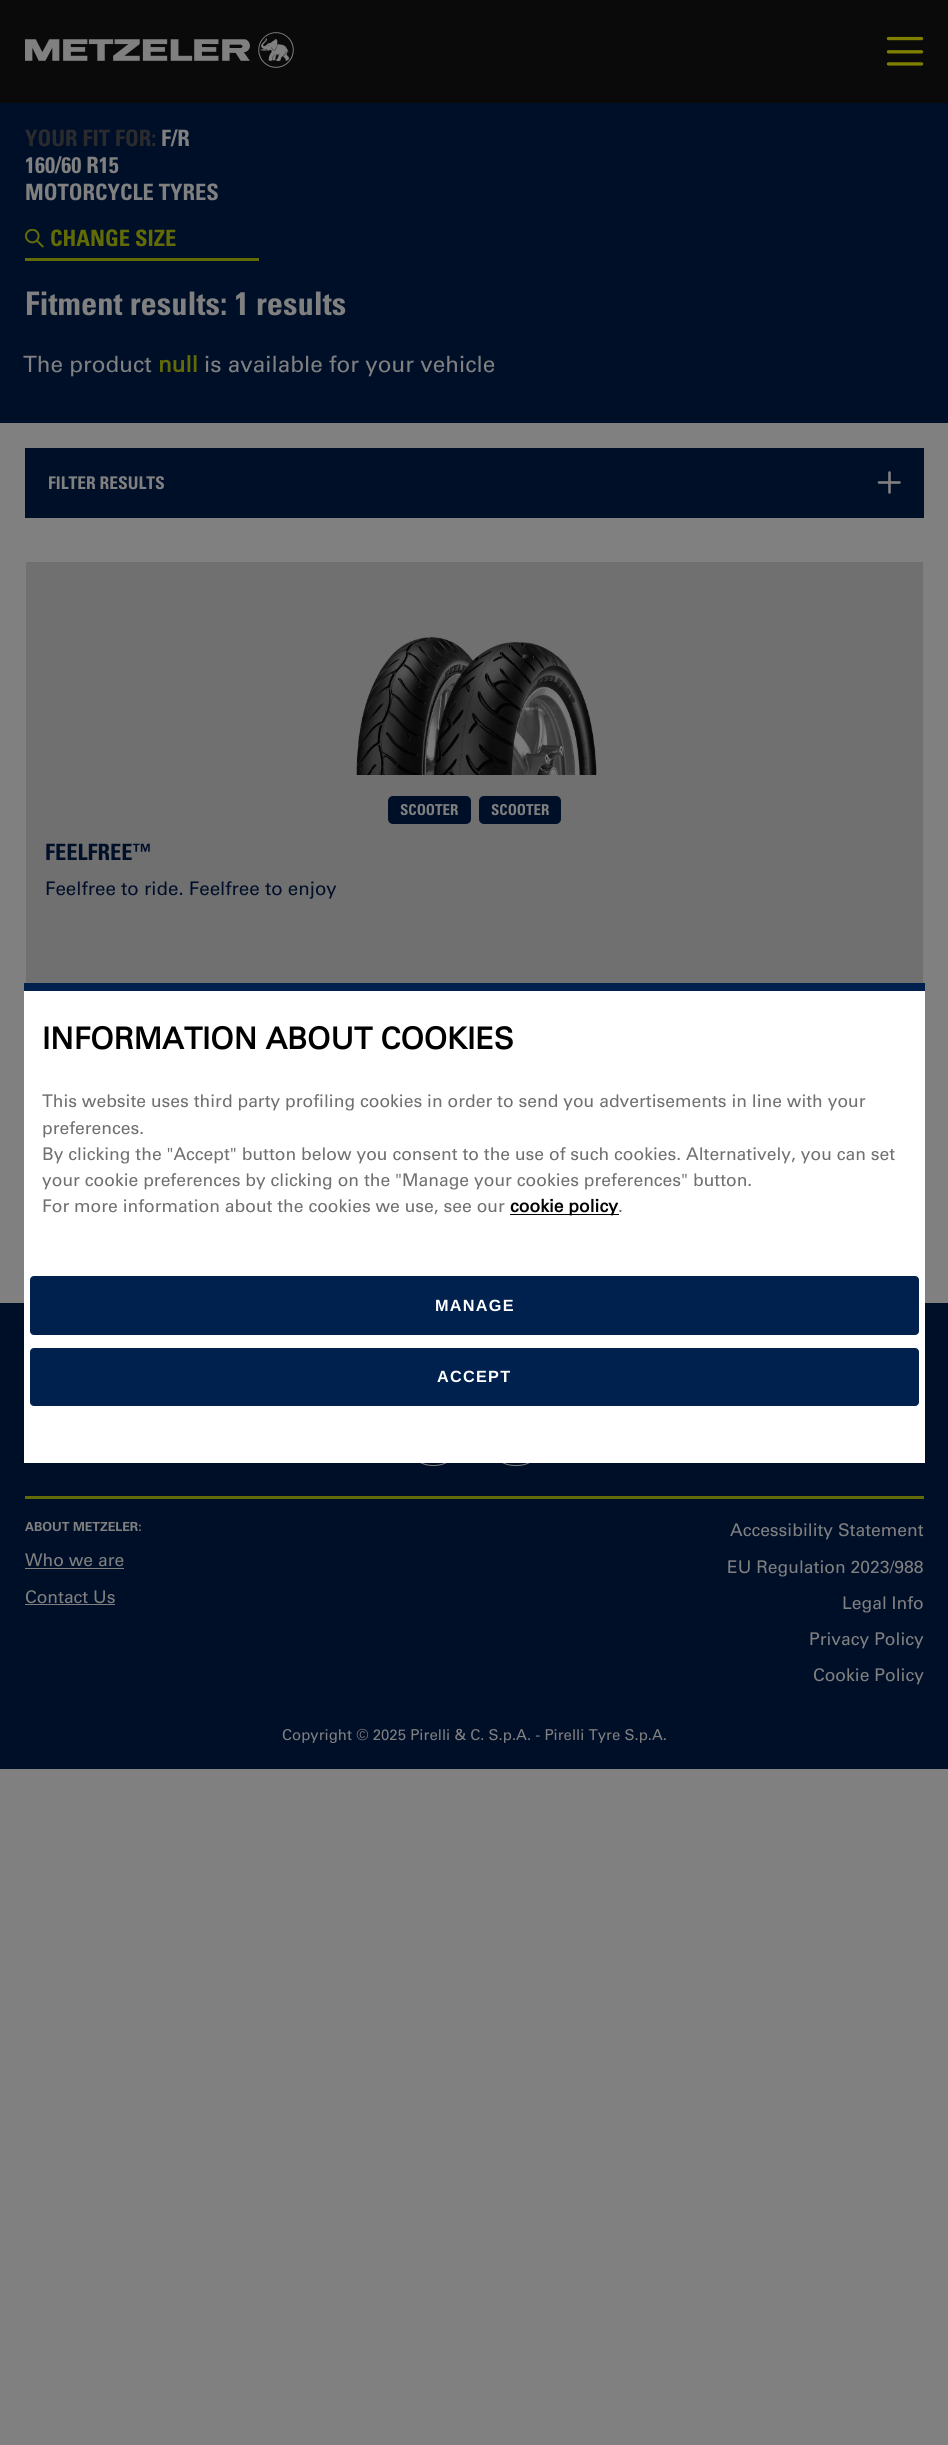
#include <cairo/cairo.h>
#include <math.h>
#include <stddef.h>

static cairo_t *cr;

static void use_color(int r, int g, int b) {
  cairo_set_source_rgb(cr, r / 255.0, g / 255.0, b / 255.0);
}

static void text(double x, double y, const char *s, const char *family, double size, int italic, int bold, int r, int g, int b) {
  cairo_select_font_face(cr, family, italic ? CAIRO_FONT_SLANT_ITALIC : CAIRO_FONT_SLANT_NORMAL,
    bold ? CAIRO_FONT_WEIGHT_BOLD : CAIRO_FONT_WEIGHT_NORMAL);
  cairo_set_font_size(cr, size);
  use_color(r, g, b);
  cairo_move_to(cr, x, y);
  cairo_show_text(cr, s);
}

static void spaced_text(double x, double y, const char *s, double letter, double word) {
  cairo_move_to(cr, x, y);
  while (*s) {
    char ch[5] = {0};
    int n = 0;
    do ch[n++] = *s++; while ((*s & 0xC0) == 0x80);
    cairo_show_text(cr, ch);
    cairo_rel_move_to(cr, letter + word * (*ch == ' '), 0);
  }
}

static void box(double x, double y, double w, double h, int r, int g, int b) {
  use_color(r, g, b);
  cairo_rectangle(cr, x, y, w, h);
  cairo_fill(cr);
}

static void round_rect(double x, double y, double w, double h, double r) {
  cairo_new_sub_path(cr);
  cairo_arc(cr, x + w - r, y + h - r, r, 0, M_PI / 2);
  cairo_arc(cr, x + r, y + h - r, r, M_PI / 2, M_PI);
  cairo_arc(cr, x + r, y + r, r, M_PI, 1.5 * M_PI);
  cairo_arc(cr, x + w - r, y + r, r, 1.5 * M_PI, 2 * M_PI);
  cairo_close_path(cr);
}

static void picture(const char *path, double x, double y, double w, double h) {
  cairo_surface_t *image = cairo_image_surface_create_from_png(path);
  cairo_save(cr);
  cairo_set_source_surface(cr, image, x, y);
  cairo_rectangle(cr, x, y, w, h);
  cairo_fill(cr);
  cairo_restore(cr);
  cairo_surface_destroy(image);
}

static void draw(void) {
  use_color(128, 128, 128);
  cairo_paint(cr);
  box(0, 0, 948, 103, 10, 10, 10);
  picture("img_01.png", 25, 32, 269, 36);
  picture("img_02.png", 886, 36, 38, 30);
  box(0, 103, 948, 320, 0, 15, 40);
  box(25, 258, 234, 3, 99, 107, 6);
  picture("img_03.png", 25, 229, 19, 19);
  box(25, 448, 899, 70, 0, 15, 40);
  cairo_new_path(cr);
  cairo_move_to(cr, 879, 482.5);
  cairo_line_to(cr, 899.5, 482.5);
  cairo_move_to(cr, 889.5, 472.5);
  cairo_line_to(cr, 889.5, 492.5);
  use_color(128, 128, 128);
  cairo_set_line_width(cr, 2.6);
  cairo_set_line_cap(cr, CAIRO_LINE_CAP_ROUND);
  cairo_stroke(cr);
  box(26, 562, 897, 421, 112, 112, 113);
  picture("img_04.png", 356, 637, 241, 138);
  use_color(0, 15, 40);
  round_rect(388, 796, 83, 28, 5);
  cairo_fill(cr);
  round_rect(479, 796, 82, 28, 5);
  cairo_fill(cr);
  box(0, 1303, 948, 466, 0, 15, 40);
  box(25, 1496, 899, 3, 99, 107, 6);
  round_rect(404.5, 1408.5, 58, 57, 28.5);
  use_color(128, 128, 128);
  cairo_set_line_width(cr, 1);
  cairo_set_line_cap(cr, CAIRO_LINE_CAP_BUTT);
  cairo_stroke(cr);
  round_rect(486.5, 1408.5, 59, 57, 28.5);
  cairo_stroke(cr);
  box(25, 1568, 99, 1, 128, 128, 128);
  box(25, 1604, 90, 1, 128, 128, 128);
  box(24, 991, 901, 472, 255, 255, 255);
  box(24, 983, 901, 8, 0, 32, 78);
  box(510, 1214, 109, 1, 0, 0, 0);
  use_color(0, 32, 78);
  round_rect(30.5, 1276.5, 888, 58, 3.5);
  cairo_fill_preserve(cr);
  cairo_stroke(cr);
  round_rect(30.5, 1348.5, 888, 57, 3.5);
  cairo_fill_preserve(cr);
  cairo_stroke(cr);
  text(25, 146, "YOUR FIT FOR:", "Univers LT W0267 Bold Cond", 22.5, 0, 1, 43, 43, 45);
  text(161, 146, "F/R", "Univers LT W0267 Bold Cond", 22.5, 0, 1, 128, 128, 128);
  text(25, 173, "160/60 R15", "Univers LT W0267 Bold Cond", 22.5, 0, 1, 128, 128, 128);
  text(25, 200, "MOTORCYCLE TYRES", "Univers LT W0267 Bold Cond", 22.5, 0, 1, 128, 128, 128);
  text(50, 246, "CHANGE SIZE", "Univers LT W0267 Bold Cond", 22.5, 0, 1, 99, 107, 6);
  text(25, 315, "Fitment results: 1 results", "Univers LT W0267 Bold Cond", 32.5, 0, 1, 128, 128, 128);
  text(23, 372, "The product", "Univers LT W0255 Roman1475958", 22.5, 0, 0, 128, 128, 128);
  text(158, 372, "null", "Univers LT W0255 Roman1475958", 22.5, 0, 1, 99, 107, 6);
  text(204, 372, "is available for your vehicle", "Univers LT W0255 Roman1475958", 22.5, 0, 0, 128, 128, 128);
  text(48, 489, "FILTER RESULTS", "Univers LT W0267 Bold Cond", 17.5, 0, 1, 128, 128, 128);
  text(400, 815, "SCOOTER", "Univers LT W0267 Bold Cond", 15, 0, 1, 128, 128, 128);
  text(491, 815, "SCOOTER", "Univers LT W0267 Bold Cond", 15, 0, 1, 128, 128, 128);
  text(45, 860, "FEELFREE™", "Univers LT W0267 Bold Cond", 22.5, 0, 1, 0, 15, 40);
  text(45, 895, "Feelfree to ride. Feelfree to enjoy", "Univers LT W0255 Roman1475958", 18.75, 0, 0, 0, 15, 40);
  text(25, 1531, "ABOUT METZELER:", "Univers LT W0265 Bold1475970", 12.5, 0, 1, 128, 128, 128);
  text(25, 1566, "Who we are", "Univers LT W0255 Roman1475958", 17.5, 0, 0, 128, 128, 128);
  text(25, 1603, "Contact Us", "Univers LT W0255 Roman1475958", 17.5, 0, 0, 128, 128, 128);
  text(730, 1536, "Accessibility Statement", "Univers LT W0255 Roman1475958", 17.5, 0, 0, 128, 128, 128);
  text(727, 1573, "EU Regulation 2023/988", "Univers LT W0255 Roman1475958", 17.5, 0, 0, 128, 128, 128);
  text(842, 1609, "Legal Info", "Univers LT W0255 Roman1475958", 17.5, 0, 0, 128, 128, 128);
  text(809, 1645, "Privacy Policy", "Univers LT W0255 Roman1475958", 17.5, 0, 0, 128, 128, 128);
  text(813, 1681, "Cookie Policy", "Univers LT W0255 Roman1475958", 17.5, 0, 0, 128, 128, 128);
  text(282, 1740, "Copyright © 2025 Pirelli & C. S.p.A. - Pirelli Tyre S.p.A.", "Univers LT W0255 Roman1475958", 15, 0, 0, 128, 128, 128);
  text(42, 1049, "INFORMATION ABOUT COOKIES", "Univers LT W0255 Roman1475958", 30, 0, 1, 0, 0, 0);
  text(42, 1107, "This website uses third party profiling cookies in order to send you advertisements in line with your", "Univers LT W0255 Roman1475958", 17.5, 0, 0, 112, 112, 112);
  text(42, 1134, "preferences.", "Univers LT W0255 Roman1475958", 17.5, 0, 0, 112, 112, 112);
  text(42, 1160, "By clicking the \"Accept\" button below you consent to the use of such cookies. Alternatively, you can set", "Univers LT W0255 Roman1475958", 17.5, 0, 0, 112, 112, 112);
  text(42, 1186, "your cookie preferences by clicking on the \"Manage your cookies preferences\" button.", "Univers LT W0255 Roman1475958", 17.5, 0, 0, 112, 112, 112);
  text(42, 1212, "For more information about the cookies we use, see our", "Univers LT W0255 Roman1475958", 17.5, 0, 0, 112, 112, 112);
  text(510, 1212, "cookie policy", "Univers LT W0255 Roman1475958", 17.5, 0, 1, 0, 0, 0);
  text(618, 1212, ".", "Univers LT W0255 Roman1475958", 17.5, 0, 0, 112, 112, 112);
  cairo_select_font_face(cr, "Liberation Sans", CAIRO_FONT_SLANT_NORMAL, CAIRO_FONT_WEIGHT_BOLD);
  cairo_set_font_size(cr, 16.25);
  use_color(255, 255, 255);
  spaced_text(435, 1311, "MANAGE", 1.25, 0);
  spaced_text(437, 1382, "ACCEPT", 1.25, 0);
}

int main(void) {
  cairo_surface_t *surface = cairo_image_surface_create(CAIRO_FORMAT_RGB24, 948, 2445);
  cr = cairo_create(surface);
  cairo_font_options_t *options = cairo_font_options_create();
  cairo_font_options_set_hint_metrics(options, CAIRO_HINT_METRICS_OFF);
  cairo_font_options_set_hint_style(options, CAIRO_HINT_STYLE_NONE);
  cairo_set_font_options(cr, options);
  cairo_set_miter_limit(cr, 4);
  draw();
  cairo_surface_write_to_png(surface, "out.png");
  cairo_font_options_destroy(options);
  cairo_destroy(cr);
  cairo_surface_destroy(surface);
  return 0;
}
